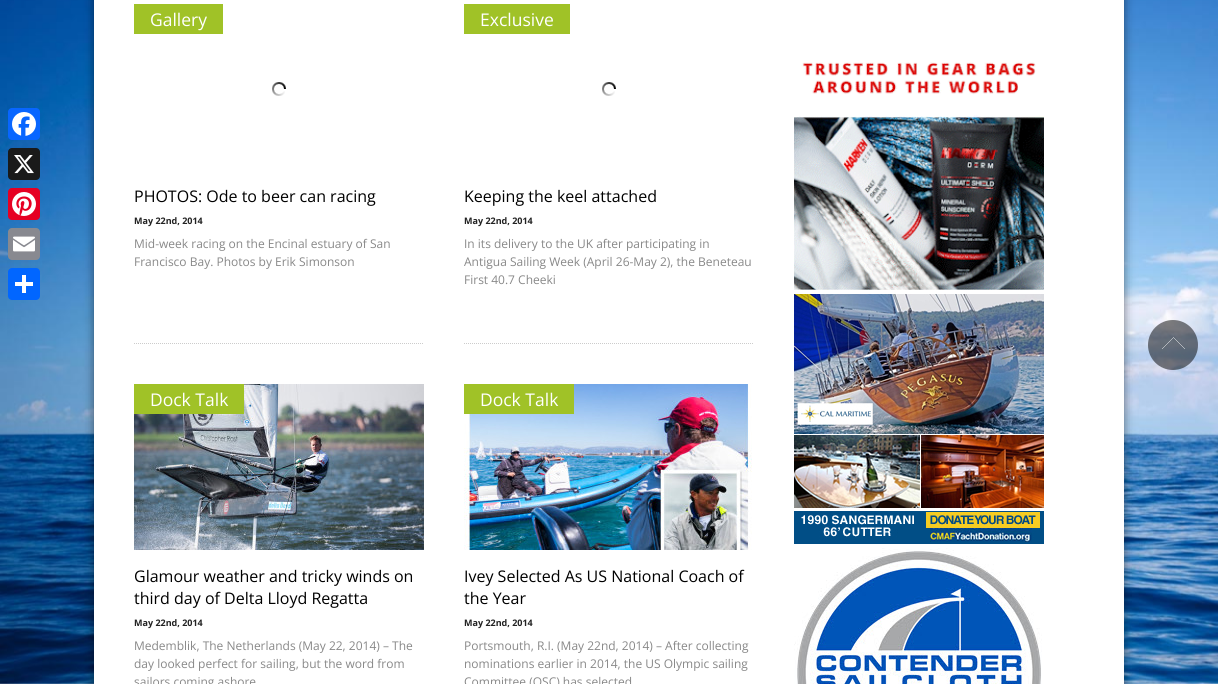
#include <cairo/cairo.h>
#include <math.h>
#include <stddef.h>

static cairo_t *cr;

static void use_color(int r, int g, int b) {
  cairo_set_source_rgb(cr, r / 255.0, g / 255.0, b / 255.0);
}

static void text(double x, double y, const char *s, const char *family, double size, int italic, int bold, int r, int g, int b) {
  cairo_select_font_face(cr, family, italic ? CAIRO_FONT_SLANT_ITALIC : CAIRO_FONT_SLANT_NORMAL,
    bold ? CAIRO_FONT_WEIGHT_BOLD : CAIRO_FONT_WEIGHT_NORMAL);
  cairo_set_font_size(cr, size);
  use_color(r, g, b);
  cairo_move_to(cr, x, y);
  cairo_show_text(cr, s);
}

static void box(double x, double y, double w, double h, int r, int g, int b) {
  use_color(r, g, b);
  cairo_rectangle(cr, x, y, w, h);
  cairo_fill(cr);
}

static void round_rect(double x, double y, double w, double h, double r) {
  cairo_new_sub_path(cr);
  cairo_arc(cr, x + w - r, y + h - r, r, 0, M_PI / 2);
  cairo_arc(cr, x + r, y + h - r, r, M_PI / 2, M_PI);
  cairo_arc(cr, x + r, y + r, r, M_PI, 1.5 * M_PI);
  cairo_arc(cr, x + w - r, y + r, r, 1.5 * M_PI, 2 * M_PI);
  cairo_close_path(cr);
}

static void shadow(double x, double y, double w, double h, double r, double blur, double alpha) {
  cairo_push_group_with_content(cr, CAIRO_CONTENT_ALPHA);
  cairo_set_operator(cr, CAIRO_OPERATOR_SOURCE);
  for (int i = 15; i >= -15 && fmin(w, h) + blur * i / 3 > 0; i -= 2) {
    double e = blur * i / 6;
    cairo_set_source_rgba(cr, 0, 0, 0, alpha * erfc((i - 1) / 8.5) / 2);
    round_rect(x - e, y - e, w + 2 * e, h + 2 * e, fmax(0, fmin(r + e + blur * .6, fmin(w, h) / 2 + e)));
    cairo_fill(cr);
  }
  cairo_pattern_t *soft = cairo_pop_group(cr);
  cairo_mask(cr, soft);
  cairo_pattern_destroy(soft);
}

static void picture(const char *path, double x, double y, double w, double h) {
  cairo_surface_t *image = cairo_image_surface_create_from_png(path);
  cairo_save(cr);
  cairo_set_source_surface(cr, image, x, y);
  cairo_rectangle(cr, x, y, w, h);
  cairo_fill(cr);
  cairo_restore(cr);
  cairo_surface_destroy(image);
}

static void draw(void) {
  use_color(255, 255, 255);
  cairo_paint(cr);
  picture("img_01.png", 0, 0, 1218, 684);
  use_color(8, 102, 255);
  round_rect(8, 108, 32, 32, 4);
  cairo_fill(cr);
  picture("img_02.png", 12, 112, 24, 24);
  use_color(26, 26, 26);
  round_rect(8, 148, 32, 32, 4);
  cairo_fill(cr);
  picture("img_03.png", 14, 155, 20, 19);
  use_color(230, 0, 35);
  round_rect(8, 188, 32, 32, 4);
  cairo_fill(cr);
  picture("img_04.png", 12, 192, 24, 24);
  use_color(136, 137, 144);
  round_rect(8, 228, 32, 32, 4);
  cairo_fill(cr);
  picture("img_05.png", 13, 236, 22, 16);
  use_color(1, 102, 255);
  round_rect(8, 268, 32, 32, 4);
  cairo_fill(cr);
  box(22, 275, 4, 18, 255, 255, 255);
  box(15, 282, 18, 4, 255, 255, 255);
  use_color(0, 0, 0);
  shadow(94, -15, 1030, 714, 0, 5, 0.5);
  box(94, 0, 1030, 684, 255, 255, 255);
  cairo_new_path(cr);
  cairo_move_to(cr, 134, 343.5);
  cairo_line_to(cr, 424, 343.5);
  use_color(204, 204, 204);
  cairo_set_line_width(cr, 1);
  cairo_set_dash(cr, (double[]){1, 1}, 2, 0);
  cairo_stroke(cr);
  picture("img_06.png", 272, 82, 14, 14);
  box(134, 4, 89, 30, 160, 194, 39);
  cairo_new_path(cr);
  cairo_move_to(cr, 464, 343.5);
  cairo_line_to(cr, 754, 343.5);
  use_color(204, 204, 204);
  cairo_stroke(cr);
  picture("img_06.png", 602, 82, 14, 14);
  box(464, 4, 106, 30, 160, 194, 39);
  picture("img_07.png", 134, 384, 290, 166);
  box(134, 384, 110, 30, 160, 194, 39);
  picture("img_08.png", 464, 384, 288, 166);
  box(464, 384, 110, 30, 160, 194, 39);
  picture("img_09.png", 794, 61, 250, 229);
  picture("img_10.png", 794, 294, 250, 250);
  picture("img_11.png", 794, 548, 248, 136);
  cairo_set_source_rgba(cr, 0, 0, 0, 0.5);
  cairo_arc(cr, 1173, 345, 25, 0, 2 * M_PI);
  cairo_fill(cr);
  picture("img_12.png", 1162, 337, 23, 12);
  text(150, 26, "Gallery", "Open Sans", 17.5, 0, 0, 255, 255, 255);
  text(134, 202, "PHOTOS: Ode to beer can racing", "Open Sans", 16, 0, 0, 0, 0, 0);
  text(134, 224, "May 22nd, 2014", "Open Sans", 9, 0, 1, 34, 34, 34);
  text(134, 248, "Mid-week racing on the Encinal estuary of San", "Open Sans", 12, 0, 0, 136, 136, 136);
  text(134, 266, "Francisco Bay. Photos by Erik Simonson", "Open Sans", 12, 0, 0, 136, 136, 136);
  text(480, 26, "Exclusive", "Open Sans", 17.5, 0, 0, 255, 255, 255);
  text(464, 202, "Keeping the keel attached", "Open Sans", 16, 0, 0, 0, 0, 0);
  text(464, 224, "May 22nd, 2014", "Open Sans", 9, 0, 1, 34, 34, 34);
  text(464, 248, "In its delivery to the UK after participating in", "Open Sans", 12, 0, 0, 136, 136, 136);
  text(464, 266, "Antigua Sailing Week (April 26-May 2), the Beneteau", "Open Sans", 12, 0, 0, 136, 136, 136);
  text(464, 284, "First 40.7 Cheeki", "Open Sans", 12, 0, 0, 136, 136, 136);
  text(150, 406, "Dock Talk", "Open Sans", 17.5, 0, 0, 255, 255, 255);
  text(134, 582, "Glamour weather and tricky winds on", "Open Sans", 16, 0, 0, 0, 0, 0);
  text(134, 604, "third day of Delta Lloyd Regatta", "Open Sans", 16, 0, 0, 0, 0, 0);
  text(134, 626, "May 22nd, 2014", "Open Sans", 9, 0, 1, 34, 34, 34);
  text(134, 650, "Medemblik, The Netherlands (May 22, 2014) – The", "Open Sans", 12, 0, 0, 136, 136, 136);
  text(134, 668, "day looked perfect for sailing, but the word from", "Open Sans", 12, 0, 0, 136, 136, 136);
  text(134, 686, "sailors coming ashore", "Open Sans", 12, 0, 0, 136, 136, 136);
  text(480, 406, "Dock Talk", "Open Sans", 17.5, 0, 0, 255, 255, 255);
  text(464, 582, "Ivey Selected As US National Coach of", "Open Sans", 16, 0, 0, 0, 0, 0);
  text(464, 604, "the Year", "Open Sans", 16, 0, 0, 0, 0, 0);
  text(464, 626, "May 22nd, 2014", "Open Sans", 9, 0, 1, 34, 34, 34);
  text(464, 650, "Portsmouth, R.I. (May 22nd, 2014) – After collecting", "Open Sans", 12, 0, 0, 136, 136, 136);
  text(464, 668, "nominations earlier in 2014, the US Olympic sailing", "Open Sans", 12, 0, 0, 136, 136, 136);
  text(464, 686, "Committee (OSC) has selected", "Open Sans", 12, 0, 0, 136, 136, 136);
}

int main(void) {
  cairo_surface_t *surface = cairo_image_surface_create(CAIRO_FORMAT_RGB24, 1218, 684);
  cr = cairo_create(surface);
  cairo_font_options_t *options = cairo_font_options_create();
  cairo_font_options_set_hint_metrics(options, CAIRO_HINT_METRICS_OFF);
  cairo_font_options_set_hint_style(options, CAIRO_HINT_STYLE_NONE);
  cairo_set_font_options(cr, options);
  cairo_set_miter_limit(cr, 4);
  draw();
  cairo_surface_write_to_png(surface, "out.png");
  cairo_font_options_destroy(options);
  cairo_destroy(cr);
  cairo_surface_destroy(surface);
  return 0;
}
